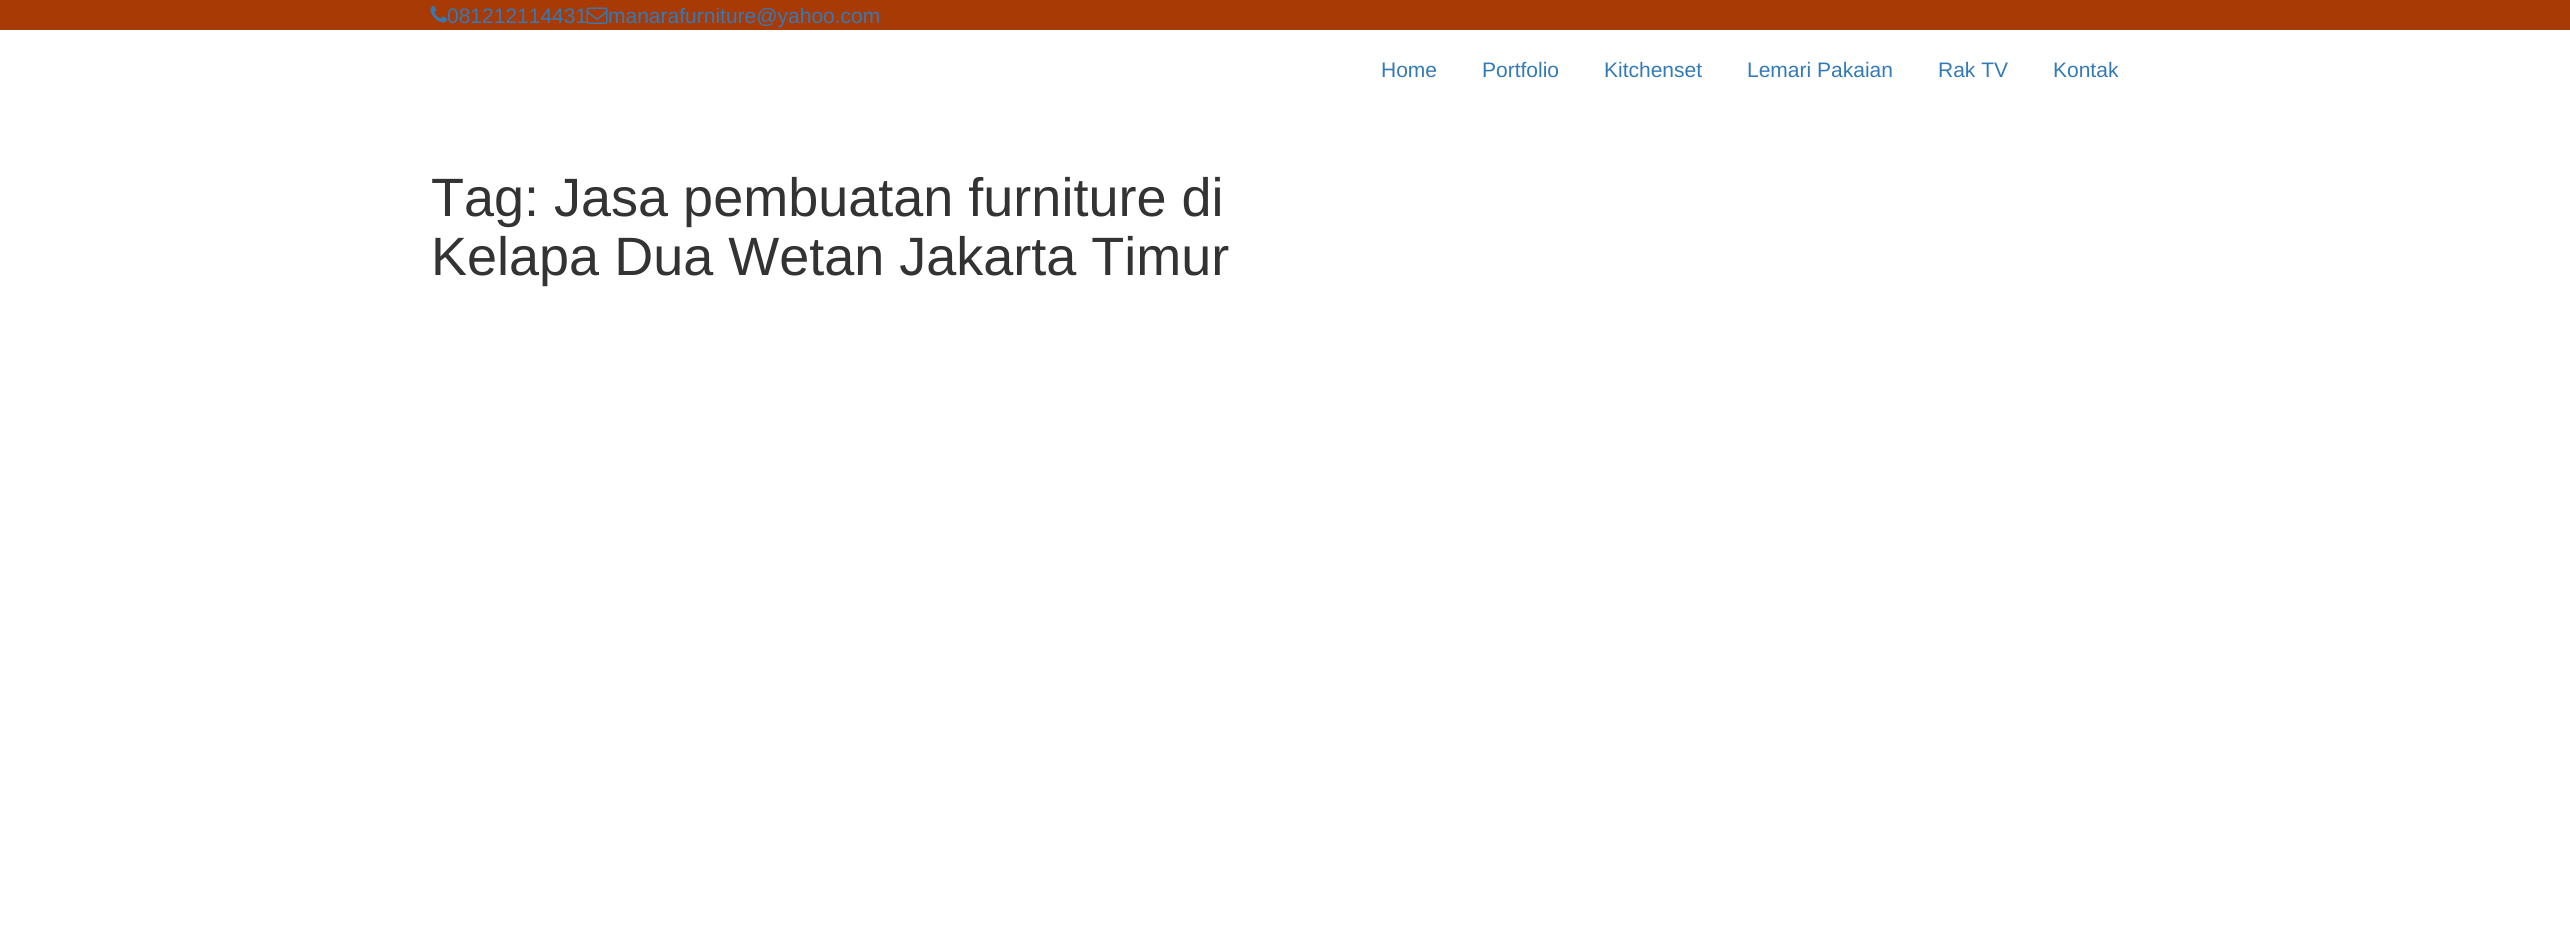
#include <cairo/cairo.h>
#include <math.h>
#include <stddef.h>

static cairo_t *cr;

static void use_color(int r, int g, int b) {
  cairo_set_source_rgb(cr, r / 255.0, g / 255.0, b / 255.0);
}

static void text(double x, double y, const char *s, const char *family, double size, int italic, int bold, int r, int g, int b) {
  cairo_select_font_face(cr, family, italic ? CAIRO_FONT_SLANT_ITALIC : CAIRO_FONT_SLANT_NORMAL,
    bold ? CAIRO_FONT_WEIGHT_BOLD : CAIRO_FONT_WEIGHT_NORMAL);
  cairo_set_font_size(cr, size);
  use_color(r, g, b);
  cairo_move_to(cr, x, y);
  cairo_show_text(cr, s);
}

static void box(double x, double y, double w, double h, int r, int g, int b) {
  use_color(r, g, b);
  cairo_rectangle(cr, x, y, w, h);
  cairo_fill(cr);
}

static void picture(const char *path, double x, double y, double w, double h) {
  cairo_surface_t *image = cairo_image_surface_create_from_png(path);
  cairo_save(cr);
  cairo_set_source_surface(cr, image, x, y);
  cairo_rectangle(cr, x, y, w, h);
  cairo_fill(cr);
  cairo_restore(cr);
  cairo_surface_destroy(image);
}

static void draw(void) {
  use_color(255, 255, 255);
  cairo_paint(cr);
  box(0, 0, 2570, 30, 168, 59, 5);
  picture("img_01.png", 430, 6, 17, 17);
  text(447, 23, "081212114431", "Liberation Sans", 21, 0, 0, 51, 122, 183);
  picture("img_02.png", 586, 7, 22, 17);
  text(608, 23, "manarafurniture@yahoo.com", "Liberation Sans", 21, 0, 0, 51, 122, 183);
  text(1381, 77, "Home", "Liberation Sans", 21, 0, 0, 51, 122, 183);
  text(1482, 77, "Portfolio", "Liberation Sans", 21, 0, 0, 51, 122, 183);
  text(1604, 77, "Kitchenset", "Liberation Sans", 21, 0, 0, 51, 122, 183);
  text(1747, 77, "Lemari Pakaian", "Liberation Sans", 21, 0, 0, 51, 122, 183);
  text(1938, 77, "Rak TV", "Liberation Sans", 21, 0, 0, 51, 122, 183);
  text(2053, 77, "Kontak", "Liberation Sans", 21, 0, 0, 51, 122, 183);
  text(431, 216, "Tag: Jasa pembuatan furniture di", "Liberation Sans", 54, 0, 0, 51, 51, 51);
  text(431, 275, "Kelapa Dua Wetan Jakarta Timur", "Liberation Sans", 54, 0, 0, 51, 51, 51);
}

int main(void) {
  cairo_surface_t *surface = cairo_image_surface_create(CAIRO_FORMAT_RGB24, 2570, 932);
  cr = cairo_create(surface);
  cairo_font_options_t *options = cairo_font_options_create();
  cairo_font_options_set_hint_metrics(options, CAIRO_HINT_METRICS_OFF);
  cairo_font_options_set_hint_style(options, CAIRO_HINT_STYLE_NONE);
  cairo_set_font_options(cr, options);
  cairo_set_miter_limit(cr, 4);
  draw();
  cairo_surface_write_to_png(surface, "out.png");
  cairo_font_options_destroy(options);
  cairo_destroy(cr);
  cairo_surface_destroy(surface);
  return 0;
}
